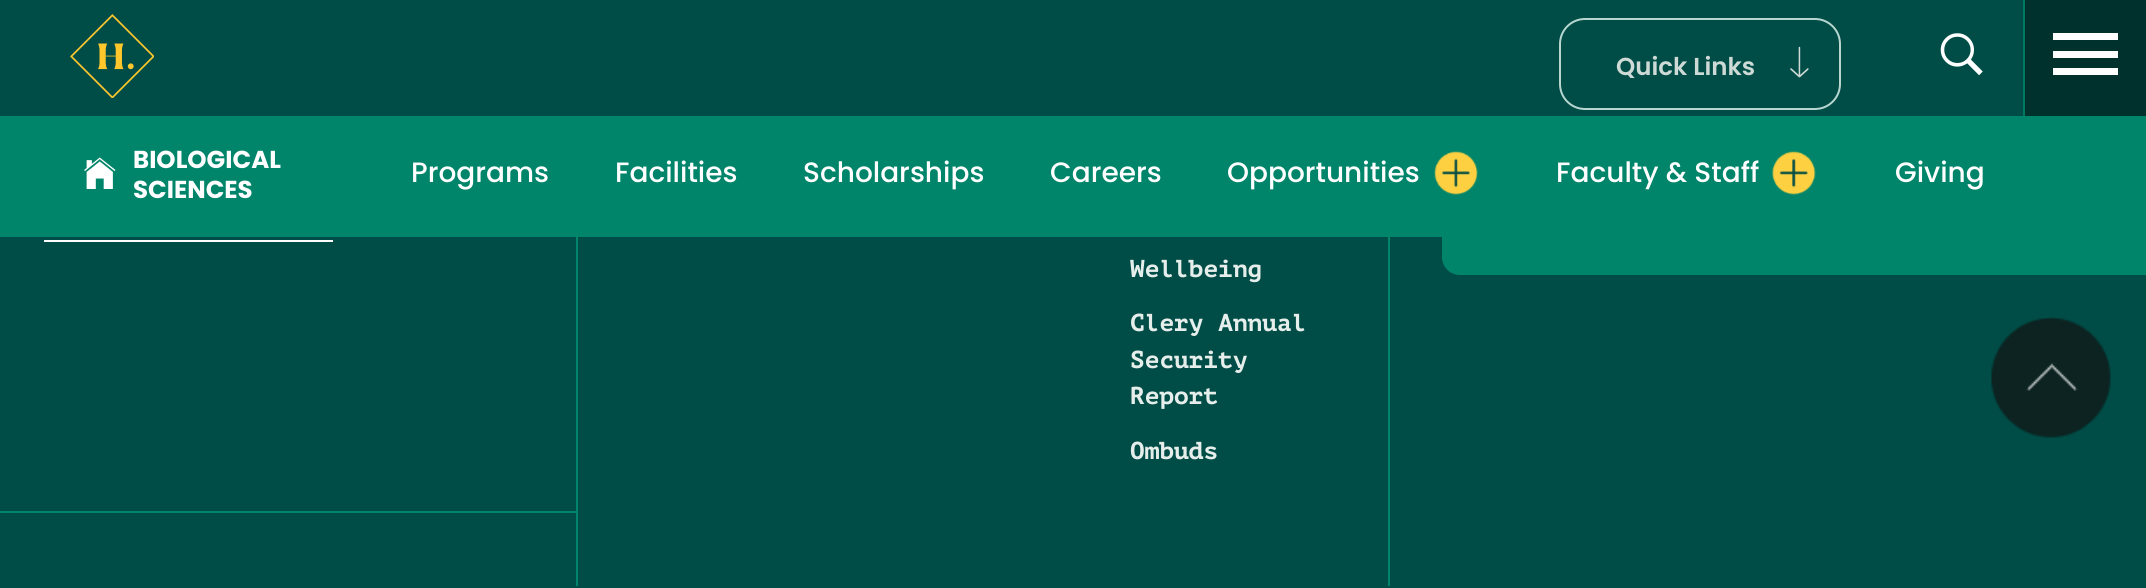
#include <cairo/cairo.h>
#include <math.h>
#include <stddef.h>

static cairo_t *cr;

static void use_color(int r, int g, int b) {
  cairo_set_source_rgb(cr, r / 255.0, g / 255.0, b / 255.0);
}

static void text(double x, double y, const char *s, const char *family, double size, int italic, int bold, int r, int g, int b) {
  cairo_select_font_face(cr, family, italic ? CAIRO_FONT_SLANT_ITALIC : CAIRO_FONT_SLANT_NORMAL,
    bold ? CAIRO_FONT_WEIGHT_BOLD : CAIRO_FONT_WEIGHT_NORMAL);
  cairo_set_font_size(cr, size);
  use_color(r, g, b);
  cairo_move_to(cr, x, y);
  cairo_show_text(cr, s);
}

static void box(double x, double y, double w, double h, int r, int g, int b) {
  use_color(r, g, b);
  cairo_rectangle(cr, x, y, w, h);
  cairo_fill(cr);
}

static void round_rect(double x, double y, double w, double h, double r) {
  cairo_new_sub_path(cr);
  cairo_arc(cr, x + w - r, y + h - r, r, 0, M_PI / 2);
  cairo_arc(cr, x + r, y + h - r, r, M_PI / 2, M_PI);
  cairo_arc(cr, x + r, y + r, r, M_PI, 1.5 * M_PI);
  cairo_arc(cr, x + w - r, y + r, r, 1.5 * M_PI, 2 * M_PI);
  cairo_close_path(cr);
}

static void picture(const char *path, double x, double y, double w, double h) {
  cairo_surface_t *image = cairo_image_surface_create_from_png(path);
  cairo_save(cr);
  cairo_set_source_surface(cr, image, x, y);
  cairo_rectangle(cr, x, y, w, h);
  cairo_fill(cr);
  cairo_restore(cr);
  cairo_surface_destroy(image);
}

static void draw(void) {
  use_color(0, 76, 70);
  cairo_paint(cr);
  use_color(0, 133, 106);
  cairo_new_path(cr);
  cairo_move_to(cr, 1460, -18);
  cairo_line_to(cr, 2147, -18);
  cairo_line_to(cr, 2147, 275);
  cairo_line_to(cr, 1460, 275);
  cairo_curve_to(cr, 1450, 275, 1442, 267, 1442, 257);
  cairo_line_to(cr, 1442, 0);
  cairo_curve_to(cr, 1442, -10, 1450, -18, 1460, -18);
  cairo_close_path(cr);
  cairo_fill(cr);
  box(1442, 0, 581, 116, 0, 76, 70);
  box(0, 116, 1442, 121, 0, 133, 106);
  picture("img_01.png", 70, 14, 84, 84);
  round_rect(1560, 19, 280, 90, 25);
  use_color(183, 214, 207);
  cairo_stroke(cr);
  picture("img_02.png", 1790, 46, 19, 32);
  picture("img_03.png", 1940, 33, 43, 43);
  box(2023, 0, 2, 116, 0, 121, 97);
  box(2025, 0, 121, 116, 0, 49, 45);
  box(2053, 68, 65, 7, 255, 255, 255);
  box(2053, 33, 65, 7, 255, 255, 255);
  box(2053, 51, 65, 7, 255, 255, 255);
  picture("img_04.png", 84, 157, 32, 32);
  picture("img_05.png", 1434, 151, 44, 44);
  picture("img_06.png", 1772, 151, 44, 44);
  box(44, 240, 289, 2, 255, 255, 255);
  box(0, 511, 576, 2, 0, 133, 106);
  box(1388, 237, 2, 349, 0, 133, 106);
  box(576, 237, 2, 349, 0, 133, 106);
  picture("img_07.png", 1991, 317, 120, 121);
  text(1616, 75, "Quick Links", "Poppins SemiBold", 24.5, 0, 0, 205, 218, 213);
  text(133, 168, "BIOLOGICAL", "Poppins", 24.5, 0, 1, 255, 255, 255);
  text(133, 198, "SCIENCES", "Poppins", 24.5, 0, 1, 255, 255, 255);
  text(411, 182, "Programs", "Poppins Medium", 28, 0, 0, 255, 255, 255);
  text(615, 182, "Facilities", "Poppins Medium", 28, 0, 0, 255, 255, 255);
  text(803, 182, "Scholarships", "Poppins Medium", 28, 0, 0, 255, 255, 255);
  text(1050, 182, "Careers", "Poppins Medium", 28, 0, 0, 255, 255, 255);
  text(1227, 182, "Opportunities", "Poppins Medium", 28, 0, 0, 255, 255, 255);
  text(1556, 182, "Faculty & Staff", "Poppins Medium", 28, 0, 0, 255, 255, 255);
  text(1895, 182, "Giving", "Poppins Medium", 28, 0, 0, 255, 255, 255);
  text(1130, 277, "Wellbeing", "PT Mono", 24.5, 0, 1, 230, 238, 235);
  text(1130, 331, "Clery Annual", "PT Mono", 24.5, 0, 1, 230, 238, 235);
  text(1130, 368, "Security", "PT Mono", 24.5, 0, 1, 230, 238, 235);
  text(1130, 404, "Report", "PT Mono", 24.5, 0, 1, 230, 238, 235);
  text(1130, 459, "Ombuds", "PT Mono", 24.5, 0, 1, 230, 238, 235);
}

int main(void) {
  cairo_surface_t *surface = cairo_image_surface_create(CAIRO_FORMAT_RGB24, 2146, 588);
  cr = cairo_create(surface);
  cairo_font_options_t *options = cairo_font_options_create();
  cairo_font_options_set_hint_metrics(options, CAIRO_HINT_METRICS_OFF);
  cairo_font_options_set_hint_style(options, CAIRO_HINT_STYLE_NONE);
  cairo_set_font_options(cr, options);
  cairo_set_miter_limit(cr, 4);
  draw();
  cairo_surface_write_to_png(surface, "out.png");
  cairo_font_options_destroy(options);
  cairo_destroy(cr);
  cairo_surface_destroy(surface);
  return 0;
}
